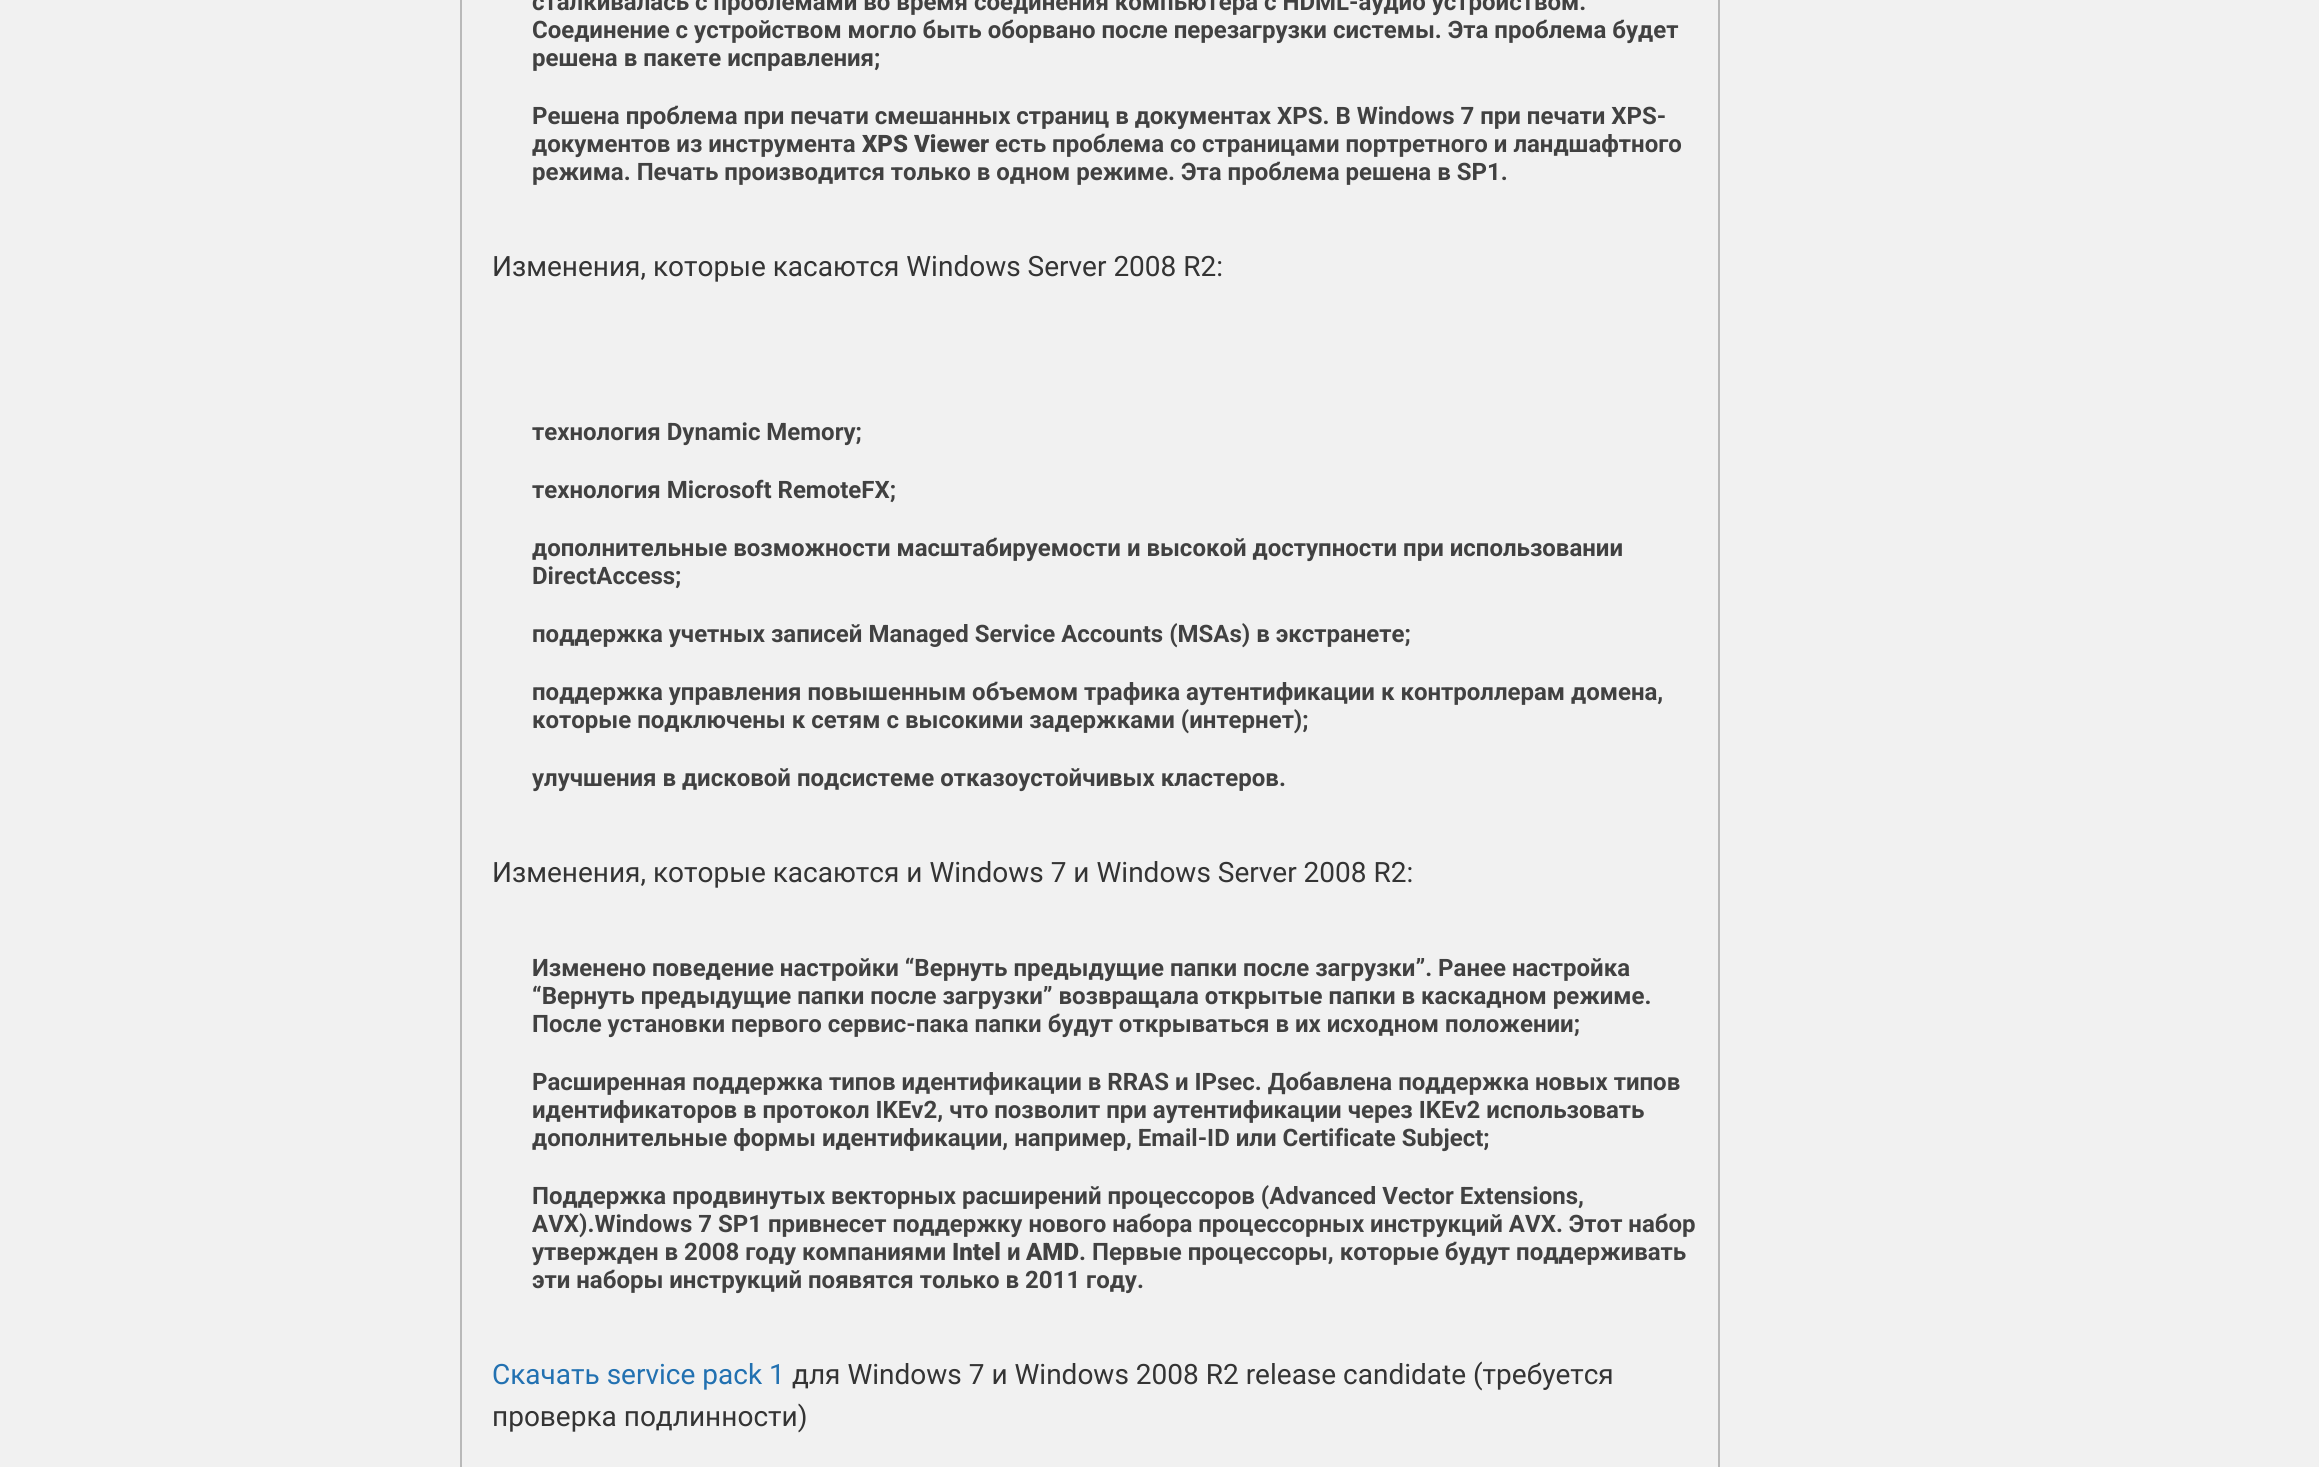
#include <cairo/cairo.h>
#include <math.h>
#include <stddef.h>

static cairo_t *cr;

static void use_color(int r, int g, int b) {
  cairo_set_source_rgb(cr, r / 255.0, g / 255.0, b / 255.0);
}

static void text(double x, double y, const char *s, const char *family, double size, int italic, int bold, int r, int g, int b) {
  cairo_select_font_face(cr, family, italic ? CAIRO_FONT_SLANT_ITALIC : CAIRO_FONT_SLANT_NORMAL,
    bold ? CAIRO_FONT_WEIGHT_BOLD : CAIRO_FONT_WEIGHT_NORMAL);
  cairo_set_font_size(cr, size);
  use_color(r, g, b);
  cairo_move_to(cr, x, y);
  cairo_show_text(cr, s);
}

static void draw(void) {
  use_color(241, 241, 241);
  cairo_paint(cr);
  cairo_rectangle(cr, 461, -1, 1258, 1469);
  use_color(185, 185, 185);
  cairo_stroke(cr);
  text(532, 10, "сталкивалась с проблемами во время соединения компьютера с HDML-аудио устройством.", "Roboto", 24, 0, 1, 65, 65, 65);
  text(532, 38, "Соединение с устройством могло быть оборвано после перезагрузки системы. Эта проблема будет", "Roboto", 24, 0, 1, 65, 65, 65);
  text(532, 66, "решена в пакете исправления;", "Roboto", 24, 0, 1, 65, 65, 65);
  text(532, 124, "Решена проблема при печати смешанных страниц в документах XPS. В Windows 7 при печати XPS-", "Roboto", 24, 0, 1, 65, 65, 65);
  text(532, 152, "документов из инструмента", "Roboto", 24, 0, 1, 65, 65, 65);
  text(862, 152, "XPS Viewer", "Roboto Black", 24, 0, 0, 65, 65, 65);
  text(995, 152, "есть проблема со страницами портретного и ландшафтного", "Roboto", 24, 0, 1, 65, 65, 65);
  text(532, 180, "режима. Печать производится только в одном режиме. Эта проблема решена в SP1.", "Roboto", 24, 0, 1, 65, 65, 65);
  text(492, 276, "Изменения, которые касаются Windows Server 2008 R2:", "Roboto", 28, 0, 0, 52, 52, 52);
  text(532, 440, "технология Dynamic Memory;", "Roboto", 24, 0, 1, 65, 65, 65);
  text(532, 498, "технология Microsoft RemoteFX;", "Roboto", 24, 0, 1, 65, 65, 65);
  text(532, 556, "дополнительные возможности масштабируемости и высокой доступности при использовании", "Roboto", 24, 0, 1, 65, 65, 65);
  text(532, 584, "DirectAccess;", "Roboto", 24, 0, 1, 65, 65, 65);
  text(532, 642, "поддержка учетных записей Managed Service Accounts (MSAs) в экстранете;", "Roboto", 24, 0, 1, 65, 65, 65);
  text(532, 700, "поддержка управления повышенным объемом трафика аутентификации к контроллерам домена,", "Roboto", 24, 0, 1, 65, 65, 65);
  text(532, 728, "которые подключены к сетям с высокими задержками (интернет);", "Roboto", 24, 0, 1, 65, 65, 65);
  text(532, 786, "улучшения в дисковой подсистеме отказоустойчивых кластеров.", "Roboto", 24, 0, 1, 65, 65, 65);
  text(492, 882, "Изменения, которые касаются и Windows 7 и Windows Server 2008 R2:", "Roboto", 28, 0, 0, 52, 52, 52);
  text(532, 976, "Изменено поведение настройки “Вернуть предыдущие папки после загрузки”. Ранее настройка", "Roboto", 24, 0, 1, 65, 65, 65);
  text(532, 1004, "“Вернуть предыдущие папки после загрузки” возвращала открытые папки в каскадном режиме.", "Roboto", 24, 0, 1, 65, 65, 65);
  text(532, 1032, "После установки первого сервис-пака папки будут открываться в их исходном положении;", "Roboto", 24, 0, 1, 65, 65, 65);
  text(532, 1090, "Расширенная поддержка типов идентификации в RRAS и IPsec. Добавлена поддержка новых типов", "Roboto", 24, 0, 1, 65, 65, 65);
  text(532, 1118, "идентификаторов в протокол IKEv2, что позволит при аутентификации через IKEv2 использовать", "Roboto", 24, 0, 1, 65, 65, 65);
  text(532, 1146, "дополнительные формы идентификации, например, Email-ID или Certificate Subject;", "Roboto", 24, 0, 1, 65, 65, 65);
  text(532, 1204, "Поддержка продвинутых векторных расширений процессоров (Advanced Vector Extensions,", "Roboto", 24, 0, 1, 65, 65, 65);
  text(532, 1232, "AVX).Windows 7 SP1 привнесет поддержку нового набора процессорных инструкций AVX. Этот набор", "Roboto", 24, 0, 1, 65, 65, 65);
  text(532, 1260, "утвержден в 2008 году компаниями", "Roboto", 24, 0, 1, 65, 65, 65);
  text(952, 1260, "Intel", "Roboto Black", 24, 0, 0, 65, 65, 65);
  text(1007, 1260, "и", "Roboto", 24, 0, 1, 65, 65, 65);
  text(1026, 1260, "AMD", "Roboto Black", 24, 0, 0, 65, 65, 65);
  text(1079, 1260, ". Первые процессоры, которые будут поддерживать", "Roboto", 24, 0, 1, 65, 65, 65);
  text(532, 1288, "эти наборы инструкций появятся только в 2011 году.", "Roboto", 24, 0, 1, 65, 65, 65);
  text(492, 1384, "Скачать service pack 1", "Roboto", 28, 0, 0, 34, 113, 177);
  text(792, 1384, "для Windows 7 и Windows 2008 R2 release candidate (требуется", "Roboto", 28, 0, 0, 52, 52, 52);
  text(492, 1426, "проверка подлинности)", "Roboto", 28, 0, 0, 52, 52, 52);
}

int main(void) {
  cairo_surface_t *surface = cairo_image_surface_create(CAIRO_FORMAT_RGB24, 2319, 1467);
  cr = cairo_create(surface);
  cairo_font_options_t *options = cairo_font_options_create();
  cairo_font_options_set_hint_metrics(options, CAIRO_HINT_METRICS_OFF);
  cairo_font_options_set_hint_style(options, CAIRO_HINT_STYLE_NONE);
  cairo_set_font_options(cr, options);
  cairo_set_miter_limit(cr, 4);
  draw();
  cairo_surface_write_to_png(surface, "out.png");
  cairo_font_options_destroy(options);
  cairo_destroy(cr);
  cairo_surface_destroy(surface);
  return 0;
}
